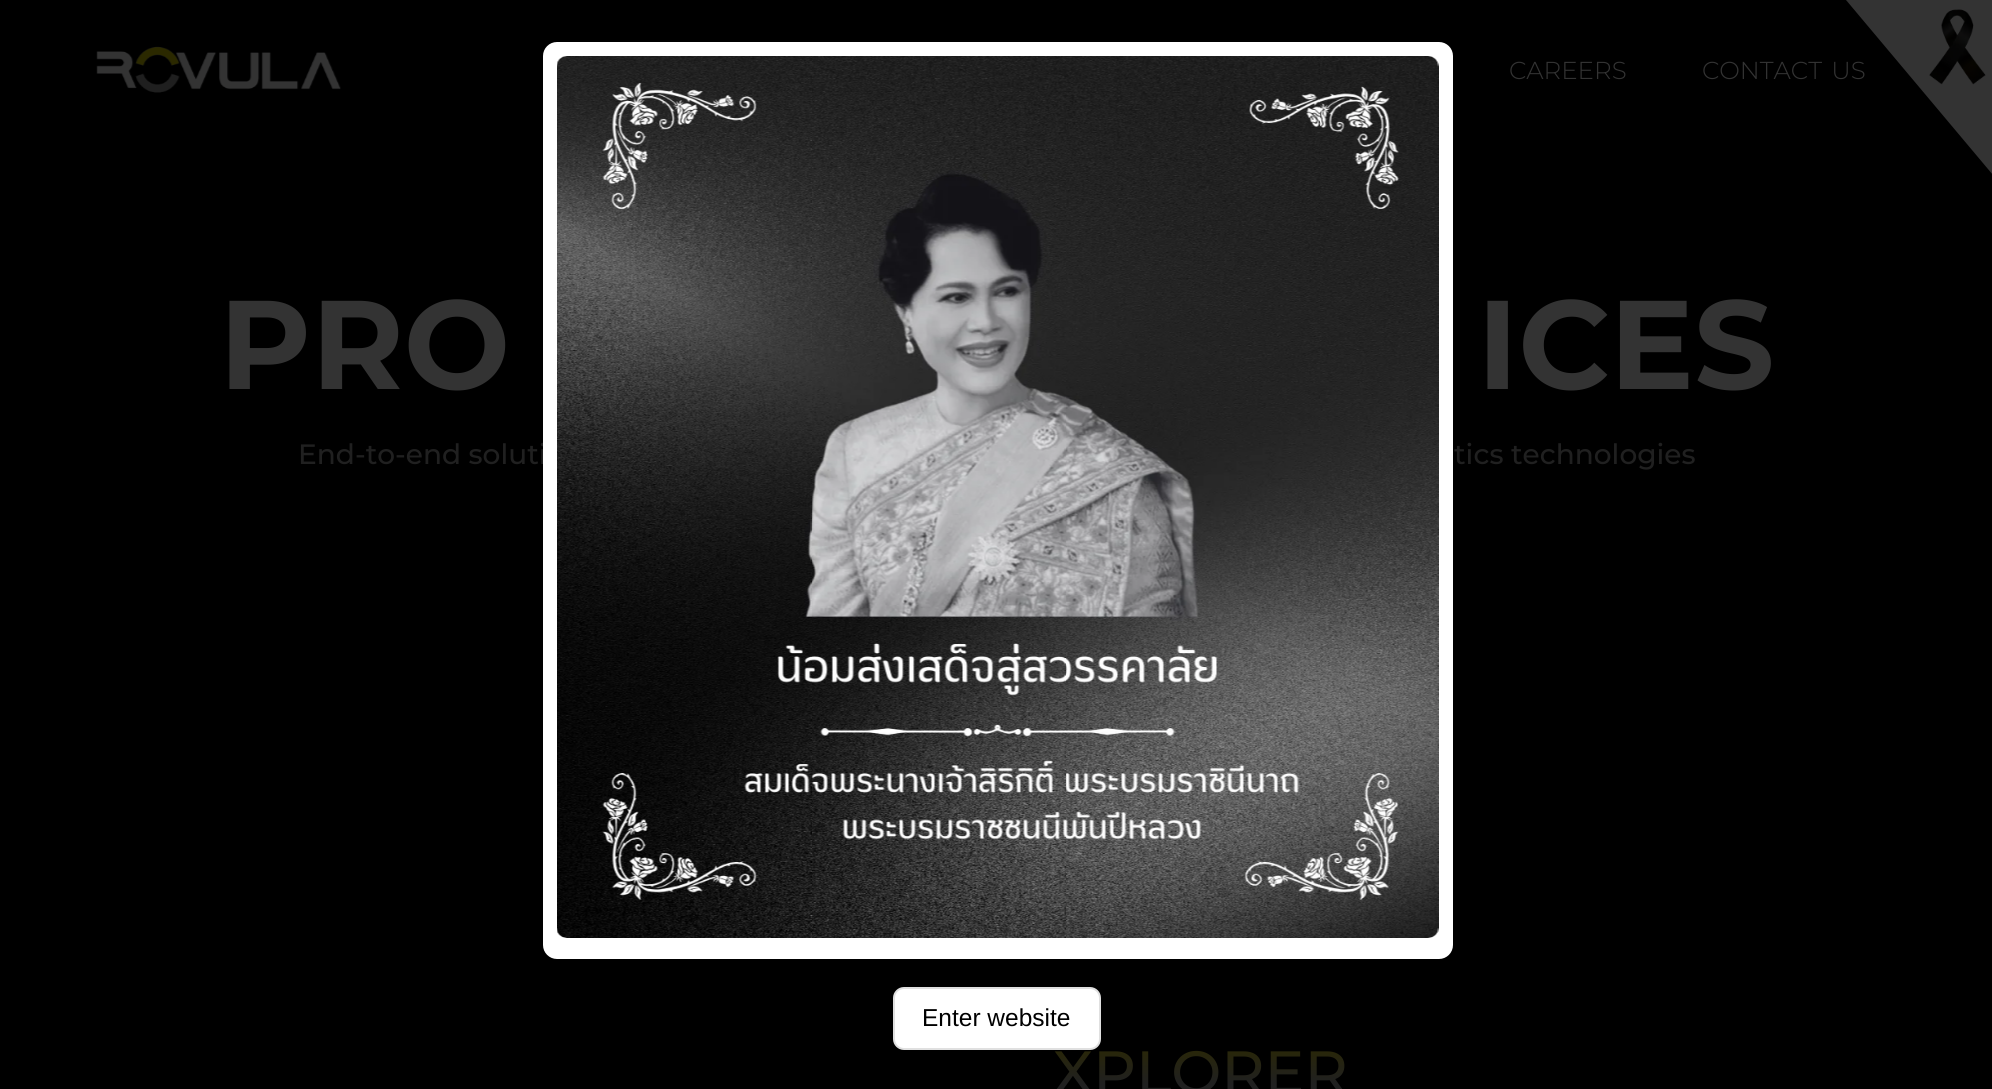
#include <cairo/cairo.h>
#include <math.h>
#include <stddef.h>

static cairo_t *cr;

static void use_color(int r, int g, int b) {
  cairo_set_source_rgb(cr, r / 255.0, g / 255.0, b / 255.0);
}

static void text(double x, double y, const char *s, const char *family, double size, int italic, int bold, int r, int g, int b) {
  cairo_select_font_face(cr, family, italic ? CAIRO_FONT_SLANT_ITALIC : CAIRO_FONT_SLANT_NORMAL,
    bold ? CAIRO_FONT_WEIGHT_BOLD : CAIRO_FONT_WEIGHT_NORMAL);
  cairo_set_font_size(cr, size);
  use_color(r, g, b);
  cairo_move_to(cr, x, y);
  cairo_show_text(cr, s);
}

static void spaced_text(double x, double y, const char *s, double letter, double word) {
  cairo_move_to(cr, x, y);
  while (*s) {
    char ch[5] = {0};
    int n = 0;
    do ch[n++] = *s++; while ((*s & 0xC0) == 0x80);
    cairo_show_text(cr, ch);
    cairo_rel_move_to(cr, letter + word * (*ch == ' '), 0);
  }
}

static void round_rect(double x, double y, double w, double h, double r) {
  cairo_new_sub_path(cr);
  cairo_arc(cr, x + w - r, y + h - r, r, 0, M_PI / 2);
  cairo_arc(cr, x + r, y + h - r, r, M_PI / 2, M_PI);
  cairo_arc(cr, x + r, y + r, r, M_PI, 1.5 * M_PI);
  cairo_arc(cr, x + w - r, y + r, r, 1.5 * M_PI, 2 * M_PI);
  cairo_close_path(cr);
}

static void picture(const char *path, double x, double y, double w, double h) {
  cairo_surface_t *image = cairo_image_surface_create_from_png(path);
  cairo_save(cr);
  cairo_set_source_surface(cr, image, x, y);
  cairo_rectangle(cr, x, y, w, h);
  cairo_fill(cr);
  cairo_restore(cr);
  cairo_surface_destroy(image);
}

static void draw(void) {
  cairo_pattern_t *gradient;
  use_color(0, 0, 0);
  cairo_paint(cr);
  picture("img_01.png", 96, 46, 245, 47);
  use_color(51, 51, 51);
  cairo_new_path(cr);
  cairo_move_to(cr, 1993, 0);
  cairo_line_to(cr, 1846, 0);
  cairo_line_to(cr, 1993, 175);
  cairo_close_path(cr);
  cairo_fill(cr);
  picture("img_02.png", 1929, 9, 57, 76);
  use_color(255, 255, 255);
  round_rect(894, 988, 206, 61, 10);
  cairo_fill_preserve(cr);
  use_color(224, 224, 224);
  cairo_stroke(cr);
  text(1509, 79, "CAREERS", "Montserrat Light", 24.5, 0, 0, 51, 51, 51);
  spaced_text(1702, 79, "CONTACT US", 0, 3);
  text(219, 389, "PRO", "Montserrat", 126, 0, 1, 51, 51, 51);
  text(1477, 389, "ICES", "Montserrat", 126, 0, 1, 51, 51, 51);
  text(298, 464, "End-to-end soluti", "Montserrat Medium", 28, 0, 0, 32, 32, 32);
  text(1454, 464, "tics technologies", "Montserrat Medium", 28, 0, 0, 32, 32, 32);
  cairo_set_font_size(cr, 59.5);
  gradient = cairo_pattern_create_linear(1448, 1037, 1448, 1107);
  cairo_pattern_add_color_stop_rgba(gradient, 0, 0.173, 0.161, 0, 1);
  cairo_pattern_add_color_stop_rgba(gradient, 0.66, 0.125, 0.125, 0.125, 1);
  cairo_set_source(cr, gradient);
  cairo_pattern_destroy(gradient);
  cairo_move_to(cr, 1053, 1093);
  cairo_show_text(cr, "XPLORER");
  use_color(255, 255, 255);
  round_rect(543, 42, 910, 917, 14);
  cairo_fill(cr);
  picture("img_03.png", 557, 56, 882, 882);
  text(922, 1026, "Enter website", "Liberation Sans", 24.5, 0, 0, 0, 0, 0);
}

int main(void) {
  cairo_surface_t *surface = cairo_image_surface_create(CAIRO_FORMAT_RGB24, 1992, 1089);
  cr = cairo_create(surface);
  cairo_font_options_t *options = cairo_font_options_create();
  cairo_font_options_set_hint_metrics(options, CAIRO_HINT_METRICS_OFF);
  cairo_font_options_set_hint_style(options, CAIRO_HINT_STYLE_NONE);
  cairo_set_font_options(cr, options);
  cairo_set_miter_limit(cr, 4);
  draw();
  cairo_surface_write_to_png(surface, "out.png");
  cairo_font_options_destroy(options);
  cairo_destroy(cr);
  cairo_surface_destroy(surface);
  return 0;
}
